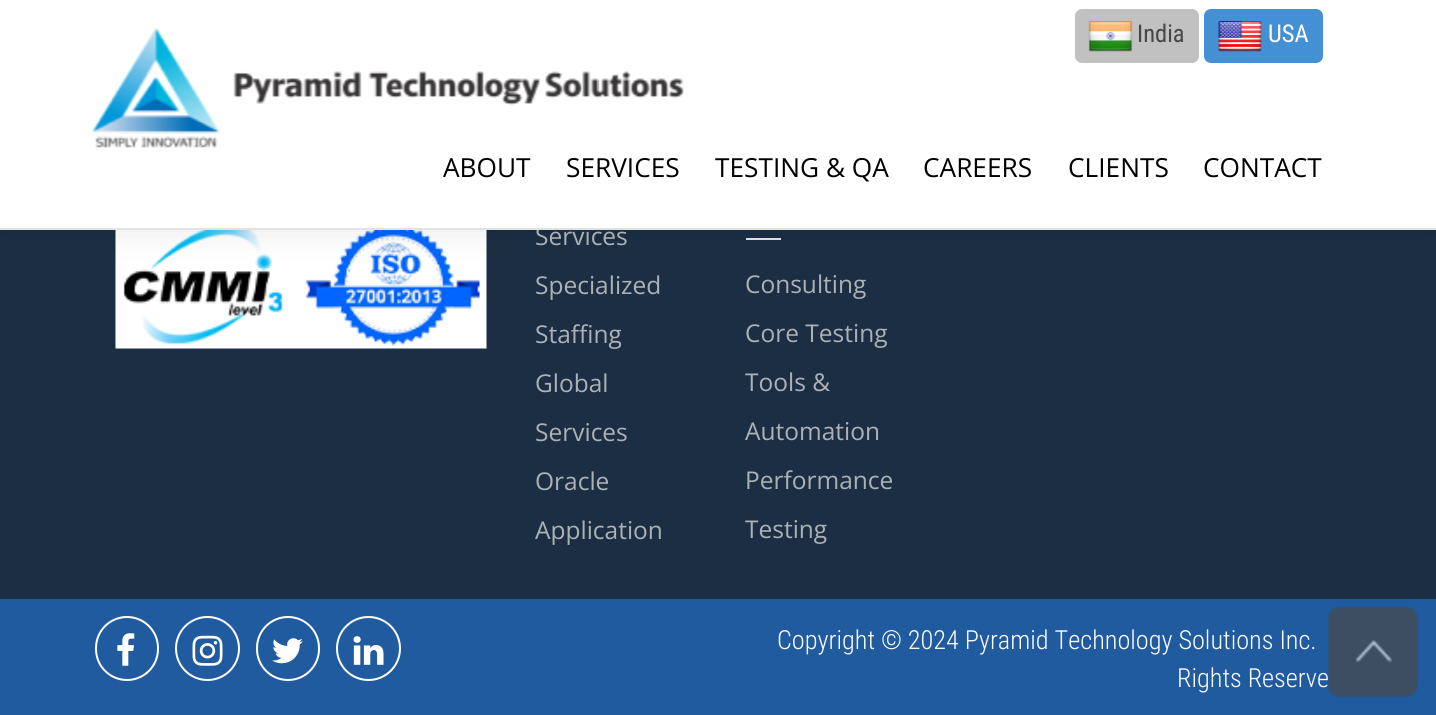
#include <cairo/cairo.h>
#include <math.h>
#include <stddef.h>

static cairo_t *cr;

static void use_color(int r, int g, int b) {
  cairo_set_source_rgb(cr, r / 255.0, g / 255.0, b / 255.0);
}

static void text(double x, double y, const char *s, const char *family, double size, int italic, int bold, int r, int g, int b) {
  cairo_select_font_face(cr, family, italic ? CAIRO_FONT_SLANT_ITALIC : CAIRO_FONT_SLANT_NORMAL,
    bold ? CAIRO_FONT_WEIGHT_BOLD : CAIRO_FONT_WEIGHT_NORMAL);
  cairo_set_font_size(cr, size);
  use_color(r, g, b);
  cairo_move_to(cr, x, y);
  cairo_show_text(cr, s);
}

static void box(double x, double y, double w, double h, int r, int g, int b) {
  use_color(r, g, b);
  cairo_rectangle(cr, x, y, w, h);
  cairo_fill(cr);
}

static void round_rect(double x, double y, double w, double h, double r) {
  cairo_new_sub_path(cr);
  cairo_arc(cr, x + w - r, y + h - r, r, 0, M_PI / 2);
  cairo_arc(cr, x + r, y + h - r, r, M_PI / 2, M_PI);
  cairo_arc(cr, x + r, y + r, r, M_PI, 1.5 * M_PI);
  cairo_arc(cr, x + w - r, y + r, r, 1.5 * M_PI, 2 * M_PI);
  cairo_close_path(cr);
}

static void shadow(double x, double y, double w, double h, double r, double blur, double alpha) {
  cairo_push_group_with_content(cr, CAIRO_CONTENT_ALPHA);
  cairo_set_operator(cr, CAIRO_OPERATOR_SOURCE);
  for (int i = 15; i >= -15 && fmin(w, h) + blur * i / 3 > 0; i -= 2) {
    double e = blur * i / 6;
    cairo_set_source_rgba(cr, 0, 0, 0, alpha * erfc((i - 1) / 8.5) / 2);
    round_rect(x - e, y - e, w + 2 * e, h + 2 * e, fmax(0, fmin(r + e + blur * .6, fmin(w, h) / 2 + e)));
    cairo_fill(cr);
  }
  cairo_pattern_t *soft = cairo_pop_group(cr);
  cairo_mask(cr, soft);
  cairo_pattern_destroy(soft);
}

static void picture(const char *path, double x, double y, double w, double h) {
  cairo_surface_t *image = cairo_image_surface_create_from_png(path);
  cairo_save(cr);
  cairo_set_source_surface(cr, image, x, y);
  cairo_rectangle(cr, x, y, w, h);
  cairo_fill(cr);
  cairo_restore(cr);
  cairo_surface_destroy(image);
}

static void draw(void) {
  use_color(32, 91, 160);
  cairo_paint(cr);
  box(0, 230, 1436, 369, 27, 46, 67);
  picture("img_04.png", 115, 230, 372, 119);
  box(746, 238, 35, 2, 226, 226, 226);
  use_color(0, 0, 0);
  shadow(0, 0, 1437, 229, 0, 17.5, 0.1);
  round_rect(96, 617, 62, 63, 31);
  use_color(255, 255, 255);
  cairo_stroke(cr);
  picture("img_05.png", 117, 633, 18, 33);
  cairo_arc(cr, 207.5, 648.5, 31.5, 0, 2 * M_PI);
  cairo_stroke(cr);
  picture("img_06.png", 192, 635, 31, 31);
  round_rect(257, 617, 62, 63, 31);
  cairo_stroke(cr);
  picture("img_07.png", 272, 638, 31, 26);
  cairo_arc(cr, 368.5, 648.5, 31.5, 0, 2 * M_PI);
  cairo_stroke(cr);
  picture("img_08.png", 353, 636, 31, 29);
  text(535, 245, "Services", "Open Sans", 24.5, 0, 0, 172, 177, 181);
  box(0, 0, 1436, 228, 255, 255, 255);
  text(1203, 177, "CONTACT", "Open Sans", 26.25, 0, 0, 0, 0, 0);
  text(1068, 177, "CLIENTS", "Open Sans", 26.25, 0, 0, 0, 0, 0);
  text(923, 177, "CAREERS", "Open Sans", 26.25, 0, 0, 0, 0, 0);
  text(715, 177, "TESTING & QA", "Open Sans", 26.25, 0, 0, 0, 0, 0);
  text(566, 177, "SERVICES", "Open Sans", 26.25, 0, 0, 0, 0, 0);
  text(443, 177, "ABOUT", "Open Sans", 26.25, 0, 0, 0, 0, 0);
  use_color(67, 144, 212);
  round_rect(1204, 9, 119, 54, 7);
  cairo_fill(cr);
  text(1268, 42, "USA", "Roboto Condensed", 24.5, 0, 0, 255, 255, 255);
  picture("img_03.png", 1218, 21, 44, 31);
  use_color(193, 193, 193);
  round_rect(1075, 9, 124, 54, 7);
  cairo_fill(cr);
  text(1137, 42, "India", "Roboto Condensed", 24.5, 0, 0, 70, 70, 70);
  picture("img_02.png", 1088, 21, 45, 31);
  picture("img_01.png", 91, 27, 593, 121);
  box(0, 228, 1436, 2, 226, 226, 226);
  text(535, 294, "Specialized", "Open Sans", 24.5, 0, 0, 172, 177, 181);
  text(535, 343, "Staffing", "Open Sans", 24.5, 0, 0, 172, 177, 181);
  text(535, 392, "Global", "Open Sans", 24.5, 0, 0, 172, 177, 181);
  text(535, 441, "Services", "Open Sans", 24.5, 0, 0, 172, 177, 181);
  text(535, 490, "Oracle", "Open Sans", 24.5, 0, 0, 172, 177, 181);
  text(535, 539, "Application", "Open Sans", 24.5, 0, 0, 172, 177, 181);
  text(745, 293, "Consulting", "Open Sans", 24.5, 0, 0, 172, 177, 181);
  text(745, 342, "Core Testing", "Open Sans", 24.5, 0, 0, 172, 177, 181);
  text(745, 391, "Tools &", "Open Sans", 24.5, 0, 0, 172, 177, 181);
  text(745, 440, "Automation", "Open Sans", 24.5, 0, 0, 172, 177, 181);
  text(745, 489, "Performance", "Open Sans", 24.5, 0, 0, 172, 177, 181);
  text(745, 538, "Testing", "Open Sans", 24.5, 0, 0, 172, 177, 181);
  text(777, 649, "Copyright © 2024 Pyramid Technology Solutions Inc.", "Roboto Condensed Light", 26.25, 0, 0, 255, 255, 255);
  text(1177, 687, "Rights Reserve", "Roboto Condensed Light", 26.25, 0, 0, 255, 255, 255);
  picture("img_09.png", 1327, 606, 92, 92);
}

int main(void) {
  cairo_surface_t *surface = cairo_image_surface_create(CAIRO_FORMAT_RGB24, 1436, 715);
  cr = cairo_create(surface);
  cairo_font_options_t *options = cairo_font_options_create();
  cairo_font_options_set_hint_metrics(options, CAIRO_HINT_METRICS_OFF);
  cairo_font_options_set_hint_style(options, CAIRO_HINT_STYLE_NONE);
  cairo_set_font_options(cr, options);
  cairo_set_miter_limit(cr, 4);
  draw();
  cairo_surface_write_to_png(surface, "out.png");
  cairo_font_options_destroy(options);
  cairo_destroy(cr);
  cairo_surface_destroy(surface);
  return 0;
}
